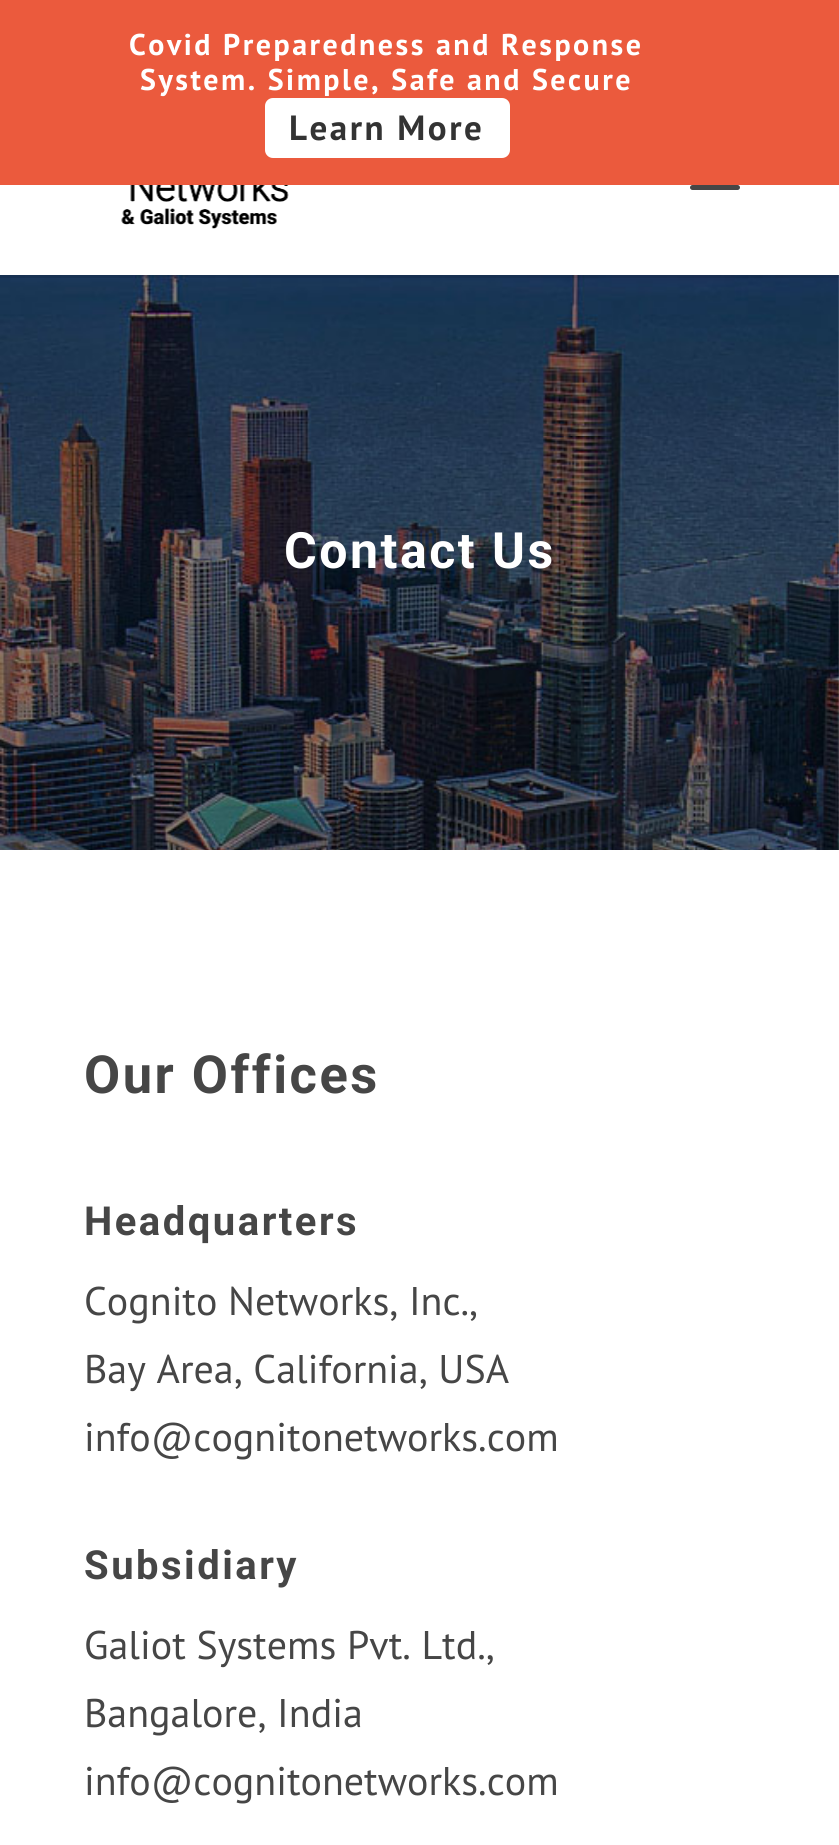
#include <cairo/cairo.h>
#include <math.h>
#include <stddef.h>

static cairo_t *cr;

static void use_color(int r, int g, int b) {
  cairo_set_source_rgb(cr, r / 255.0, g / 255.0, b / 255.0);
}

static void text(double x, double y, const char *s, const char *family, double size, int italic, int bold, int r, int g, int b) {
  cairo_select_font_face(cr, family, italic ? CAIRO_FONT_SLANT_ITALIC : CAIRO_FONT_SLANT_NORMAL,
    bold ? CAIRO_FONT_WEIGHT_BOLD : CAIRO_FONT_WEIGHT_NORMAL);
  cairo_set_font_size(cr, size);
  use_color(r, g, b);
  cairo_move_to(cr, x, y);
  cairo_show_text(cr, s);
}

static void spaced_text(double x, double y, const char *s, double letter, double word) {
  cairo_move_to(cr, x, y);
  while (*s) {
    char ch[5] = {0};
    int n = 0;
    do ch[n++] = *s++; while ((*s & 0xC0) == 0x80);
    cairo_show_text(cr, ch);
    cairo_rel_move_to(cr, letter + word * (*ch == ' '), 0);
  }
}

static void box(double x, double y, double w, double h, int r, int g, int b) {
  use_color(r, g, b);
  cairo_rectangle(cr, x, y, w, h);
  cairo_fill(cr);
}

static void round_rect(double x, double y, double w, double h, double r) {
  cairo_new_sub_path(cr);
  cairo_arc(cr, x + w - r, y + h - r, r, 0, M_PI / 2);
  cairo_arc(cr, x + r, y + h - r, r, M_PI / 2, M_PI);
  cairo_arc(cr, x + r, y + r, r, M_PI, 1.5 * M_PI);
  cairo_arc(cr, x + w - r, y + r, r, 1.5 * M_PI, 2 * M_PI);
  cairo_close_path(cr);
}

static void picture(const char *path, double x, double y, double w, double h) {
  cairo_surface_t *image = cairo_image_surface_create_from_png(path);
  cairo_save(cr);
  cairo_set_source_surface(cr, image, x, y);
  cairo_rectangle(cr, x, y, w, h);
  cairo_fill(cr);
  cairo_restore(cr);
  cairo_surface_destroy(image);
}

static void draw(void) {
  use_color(255, 255, 255);
  cairo_paint(cr);
  box(0, 0, 839, 185, 235, 90, 61);
  use_color(255, 255, 255);
  round_rect(265, 98, 245, 60, 8);
  cairo_fill(cr);
  picture("img_03.png", 0, 275, 839, 575);
  cairo_set_source_rgba(cr, 0, 0, 0, 0.1);
  cairo_rectangle(cr, 0, 275, 839, 3);
  cairo_fill(cr);
  picture("img_01.png", 121, 185, 168, 44);
  picture("img_02.png", 690, 185, 50, 5);
  cairo_select_font_face(cr, "PT Sans", CAIRO_FONT_SLANT_NORMAL, CAIRO_FONT_WEIGHT_BOLD);
  cairo_set_font_size(cr, 30);
  use_color(255, 255, 255);
  spaced_text(129, 55, "Covid Preparedness and Response", 2.5, 0);
  spaced_text(140, 90, "System. Simple, Safe and Secure", 2.5, 0);
  cairo_set_font_size(cr, 35);
  use_color(51, 51, 51);
  spaced_text(289, 140, "Learn More", 2.5, 0);
  cairo_select_font_face(cr, "Roboto", CAIRO_FONT_SLANT_NORMAL, CAIRO_FONT_WEIGHT_BOLD);
  cairo_set_font_size(cr, 50);
  use_color(255, 255, 255);
  spaced_text(284, 568, "Contact Us", 2.5, 0);
  cairo_set_font_size(cr, 52.5);
  use_color(70, 70, 70);
  spaced_text(84, 1093, "Our Offices", 2.5, 0);
  cairo_set_font_size(cr, 40);
  spaced_text(84, 1235, "Headquarters", 2.5, 0);
  text(84, 1315, "Cognito Networks, Inc.,", "PT Sans", 40, 0, 0, 70, 70, 70);
  text(84, 1383, "Bay Area, California, USA", "PT Sans", 40, 0, 0, 70, 70, 70);
  text(84, 1451, "info@cognitonetworks.com", "PT Sans", 40, 0, 0, 70, 70, 70);
  cairo_select_font_face(cr, "Roboto", CAIRO_FONT_SLANT_NORMAL, CAIRO_FONT_WEIGHT_BOLD);
  spaced_text(84, 1579, "Subsidiary", 2.5, 0);
  text(84, 1659, "Galiot Systems Pvt. Ltd.,", "PT Sans", 40, 0, 0, 70, 70, 70);
  text(84, 1727, "Bangalore, India", "PT Sans", 40, 0, 0, 70, 70, 70);
  text(84, 1795, "info@cognitonetworks.com", "PT Sans", 40, 0, 0, 70, 70, 70);
}

int main(void) {
  cairo_surface_t *surface = cairo_image_surface_create(CAIRO_FORMAT_RGB24, 839, 1845);
  cr = cairo_create(surface);
  cairo_font_options_t *options = cairo_font_options_create();
  cairo_font_options_set_hint_metrics(options, CAIRO_HINT_METRICS_OFF);
  cairo_font_options_set_hint_style(options, CAIRO_HINT_STYLE_NONE);
  cairo_set_font_options(cr, options);
  cairo_set_miter_limit(cr, 4);
  draw();
  cairo_surface_write_to_png(surface, "out.png");
  cairo_font_options_destroy(options);
  cairo_destroy(cr);
  cairo_surface_destroy(surface);
  return 0;
}
